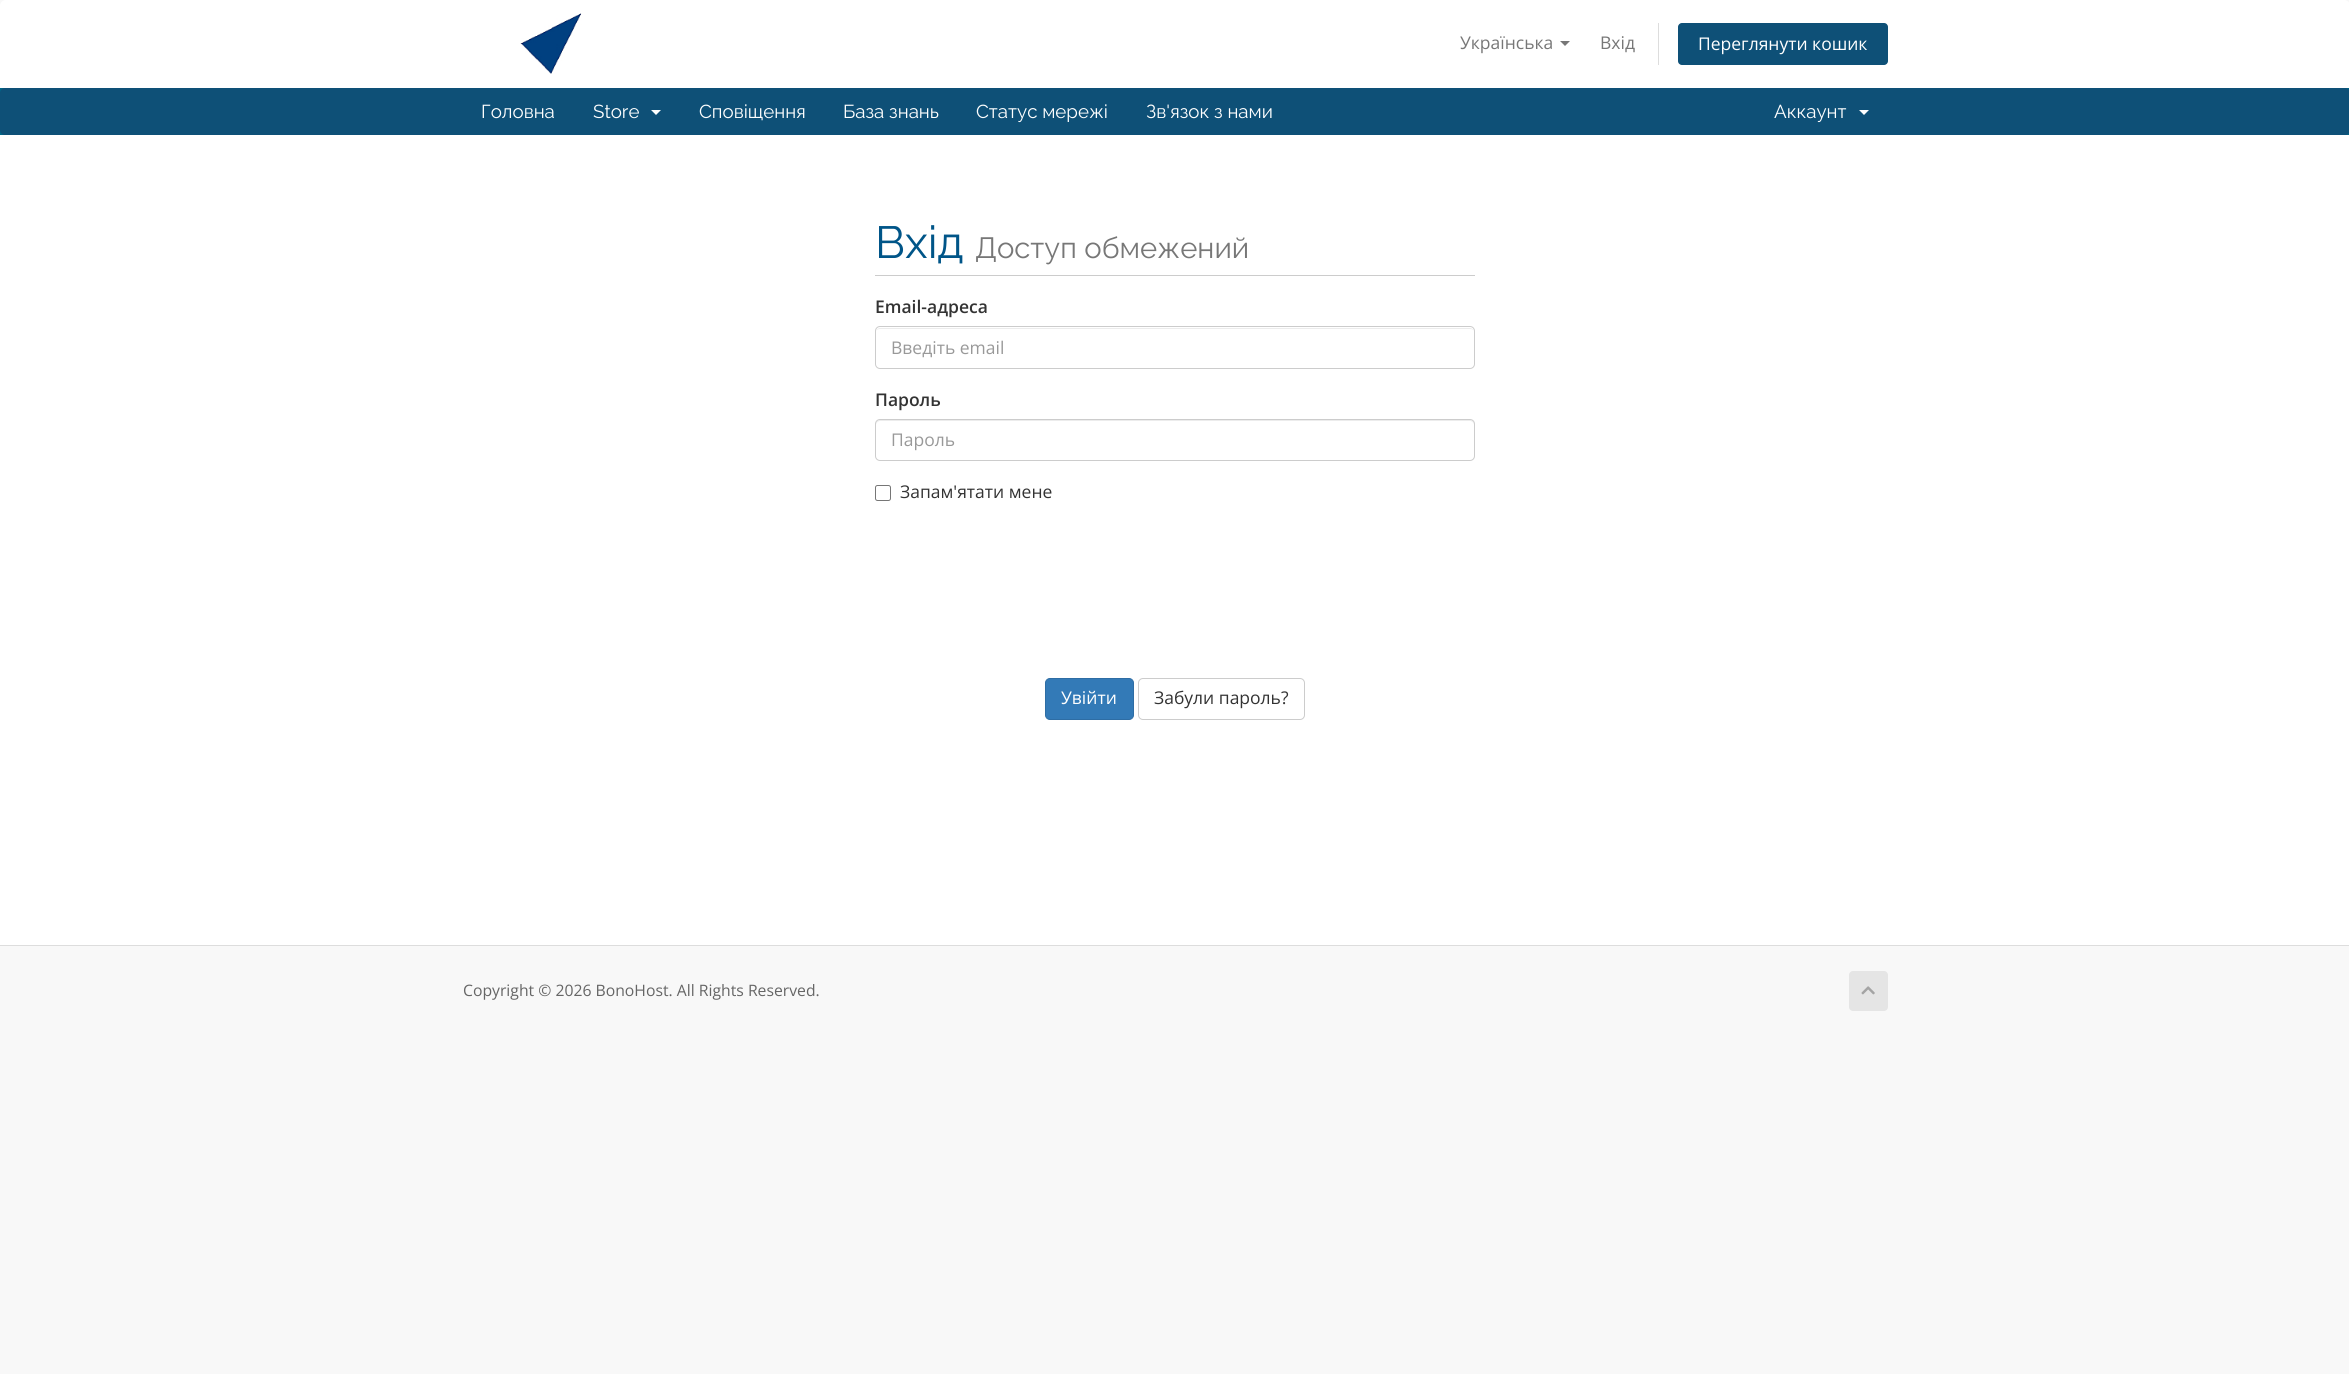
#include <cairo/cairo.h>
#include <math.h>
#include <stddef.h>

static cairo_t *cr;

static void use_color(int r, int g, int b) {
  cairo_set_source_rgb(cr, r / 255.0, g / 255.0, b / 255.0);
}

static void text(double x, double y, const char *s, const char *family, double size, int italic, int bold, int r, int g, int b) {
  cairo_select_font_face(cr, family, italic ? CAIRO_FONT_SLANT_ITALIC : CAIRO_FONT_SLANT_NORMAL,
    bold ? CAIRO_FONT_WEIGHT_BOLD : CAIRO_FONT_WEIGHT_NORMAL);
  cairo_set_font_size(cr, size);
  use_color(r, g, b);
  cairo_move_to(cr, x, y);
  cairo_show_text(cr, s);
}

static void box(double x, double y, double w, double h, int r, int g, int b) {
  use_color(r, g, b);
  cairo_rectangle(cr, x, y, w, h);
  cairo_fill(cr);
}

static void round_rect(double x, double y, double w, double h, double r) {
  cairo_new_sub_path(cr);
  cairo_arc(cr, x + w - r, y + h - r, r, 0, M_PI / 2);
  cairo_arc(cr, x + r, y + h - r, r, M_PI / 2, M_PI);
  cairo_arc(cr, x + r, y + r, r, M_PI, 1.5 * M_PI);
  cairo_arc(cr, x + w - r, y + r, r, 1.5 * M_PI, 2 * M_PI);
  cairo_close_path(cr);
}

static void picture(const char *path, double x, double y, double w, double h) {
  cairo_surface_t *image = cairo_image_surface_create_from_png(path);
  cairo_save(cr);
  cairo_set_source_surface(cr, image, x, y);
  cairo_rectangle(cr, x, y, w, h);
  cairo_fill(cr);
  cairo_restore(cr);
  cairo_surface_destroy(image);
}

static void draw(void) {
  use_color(248, 248, 248);
  cairo_paint(cr);
  use_color(255, 255, 255);
  cairo_new_path(cr);
  cairo_move_to(cr, 6, 0);
  cairo_line_to(cr, 2344, 0);
  cairo_curve_to(cr, 2347.5, 0, 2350, 2.5, 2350, 6);
  cairo_line_to(cr, 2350, 88);
  cairo_line_to(cr, 0, 88);
  cairo_line_to(cr, 0, 6);
  cairo_curve_to(cr, 0, 2.5, 2.5, 0, 6, 0);
  cairo_close_path(cr);
  cairo_fill(cr);
  picture("img_01.png", 520, 13, 62, 61);
  use_color(119, 119, 119);
  cairo_new_path(cr);
  cairo_move_to(cr, 1560, 41);
  cairo_line_to(cr, 1570, 41);
  cairo_line_to(cr, 1565, 46);
  cairo_close_path(cr);
  cairo_fill(cr);
  box(1658, 23, 1, 42, 221, 221, 221);
  use_color(14, 80, 119);
  round_rect(1678, 23, 210, 42, 4);
  cairo_fill(cr);
  box(0, 88, 2349, 47, 0, 102, 135);
  use_color(14, 80, 119);
  round_rect(0, 88, 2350, 47, 5);
  cairo_fill(cr);
  use_color(255, 255, 255);
  cairo_new_path(cr);
  cairo_move_to(cr, 651, 110);
  cairo_line_to(cr, 661, 110);
  cairo_line_to(cr, 656, 115);
  cairo_close_path(cr);
  cairo_fill(cr);
  cairo_new_path(cr);
  cairo_move_to(cr, 1859, 110);
  cairo_line_to(cr, 1869, 110);
  cairo_line_to(cr, 1864, 115);
  cairo_close_path(cr);
  cairo_fill(cr);
  box(0, 135, 2349, 810, 255, 255, 255);
  box(875, 275, 600, 1, 204, 204, 204);
  use_color(236, 236, 236);
  cairo_new_path(cr);
  cairo_move_to(cr, 880, 329);
  cairo_line_to(cr, 1470, 329);
  cairo_curve_to(cr, 1472, 329, 1474, 330, 1474, 332);
  cairo_curve_to(cr, 1474, 330, 1472, 328, 1470, 328);
  cairo_line_to(cr, 880, 328);
  cairo_curve_to(cr, 878, 328, 876, 330, 876, 332);
  cairo_curve_to(cr, 876, 330, 878, 329, 880, 329);
  cairo_close_path(cr);
  cairo_fill(cr);
  round_rect(875.5, 326.5, 599, 42, 4.5);
  use_color(204, 204, 204);
  cairo_set_line_width(cr, 1);
  cairo_stroke(cr);
  use_color(236, 236, 236);
  cairo_new_path(cr);
  cairo_move_to(cr, 880, 421);
  cairo_line_to(cr, 1470, 421);
  cairo_curve_to(cr, 1472, 421, 1474, 423, 1474, 425);
  cairo_line_to(cr, 1474, 424);
  cairo_curve_to(cr, 1474, 422, 1472, 420, 1470, 420);
  cairo_line_to(cr, 880, 420);
  cairo_curve_to(cr, 878, 420, 876, 422, 876, 424);
  cairo_line_to(cr, 876, 425);
  cairo_curve_to(cr, 876, 423, 878, 421, 880, 421);
  cairo_close_path(cr);
  cairo_fill(cr);
  round_rect(875.5, 419.5, 599, 41, 4.5);
  use_color(204, 204, 204);
  cairo_stroke(cr);
  round_rect(875.5, 485.5, 15, 15, 2);
  use_color(118, 118, 118);
  cairo_stroke(cr);
  use_color(51, 122, 183);
  round_rect(1045.5, 678.5, 88, 41, 4.5);
  cairo_fill_preserve(cr);
  use_color(46, 109, 164);
  cairo_stroke(cr);
  round_rect(1138.5, 678.5, 166, 41, 4.5);
  use_color(204, 204, 204);
  cairo_stroke(cr);
  box(0, 945, 2349, 1, 221, 221, 221);
  use_color(229, 229, 229);
  round_rect(1849, 971, 39, 40, 4);
  cairo_fill(cr);
  picture("img_02.png", 1861, 986, 14, 9);
  text(1460, 49, "Українська", "Open Sans", 17.5, 0, 0, 119, 119, 119);
  text(1600, 49, "Вхід", "Open Sans", 17.5, 0, 0, 119, 119, 119);
  text(1698, 50, "Переглянути кошик", "Open Sans", 17.5, 0, 0, 255, 255, 255);
  text(481, 118, "Головна", "Raleway", 18.75, 0, 0, 255, 255, 255);
  text(593, 118, "Store", "Raleway", 18.75, 0, 0, 255, 255, 255);
  text(699, 118, "Сповіщення", "Raleway", 18.75, 0, 0, 255, 255, 255);
  text(843, 118, "База знань", "Raleway", 18.75, 0, 0, 255, 255, 255);
  text(976, 118, "Статус мережі", "Raleway", 18.75, 0, 0, 255, 255, 255);
  text(1146, 118, "Зв'язок з нами", "Raleway", 18.75, 0, 0, 255, 255, 255);
  text(1774, 118, "Аккаунт", "Raleway", 18.75, 0, 0, 255, 255, 255);
  text(875, 258, "Вхід", "Raleway", 45, 0, 0, 0, 85, 136);
  text(975, 258, "Доступ обмежений", "Raleway", 29.25, 0, 0, 119, 119, 119);
  text(875, 313, "Email-адреса", "Open Sans SemiBold", 17.5, 0, 0, 51, 51, 51);
  text(891, 354, "Введіть email", "Open Sans", 17.5, 0, 0, 153, 153, 153);
  text(875, 406, "Пароль", "Open Sans SemiBold", 17.5, 0, 0, 51, 51, 51);
  text(891, 446, "Пароль", "Open Sans", 17.5, 0, 0, 153, 153, 153);
  text(900, 498, "Запам'ятати мене", "Open Sans", 17.5, 0, 0, 51, 51, 51);
  text(1061, 704, "Увійти", "Open Sans", 17.5, 0, 0, 255, 255, 255);
  text(1154, 704, "Забули пароль?", "Open Sans", 17.5, 0, 0, 51, 51, 51);
  text(463, 996, "Copyright © 2026 BonoHost. All Rights Reserved.", "Open Sans", 15.75, 0, 0, 102, 102, 102);
}

int main(void) {
  cairo_surface_t *surface = cairo_image_surface_create(CAIRO_FORMAT_RGB24, 2349, 1374);
  cr = cairo_create(surface);
  cairo_font_options_t *options = cairo_font_options_create();
  cairo_font_options_set_hint_metrics(options, CAIRO_HINT_METRICS_OFF);
  cairo_font_options_set_hint_style(options, CAIRO_HINT_STYLE_NONE);
  cairo_set_font_options(cr, options);
  cairo_set_miter_limit(cr, 4);
  draw();
  cairo_surface_write_to_png(surface, "out.png");
  cairo_font_options_destroy(options);
  cairo_destroy(cr);
  cairo_surface_destroy(surface);
  return 0;
}
